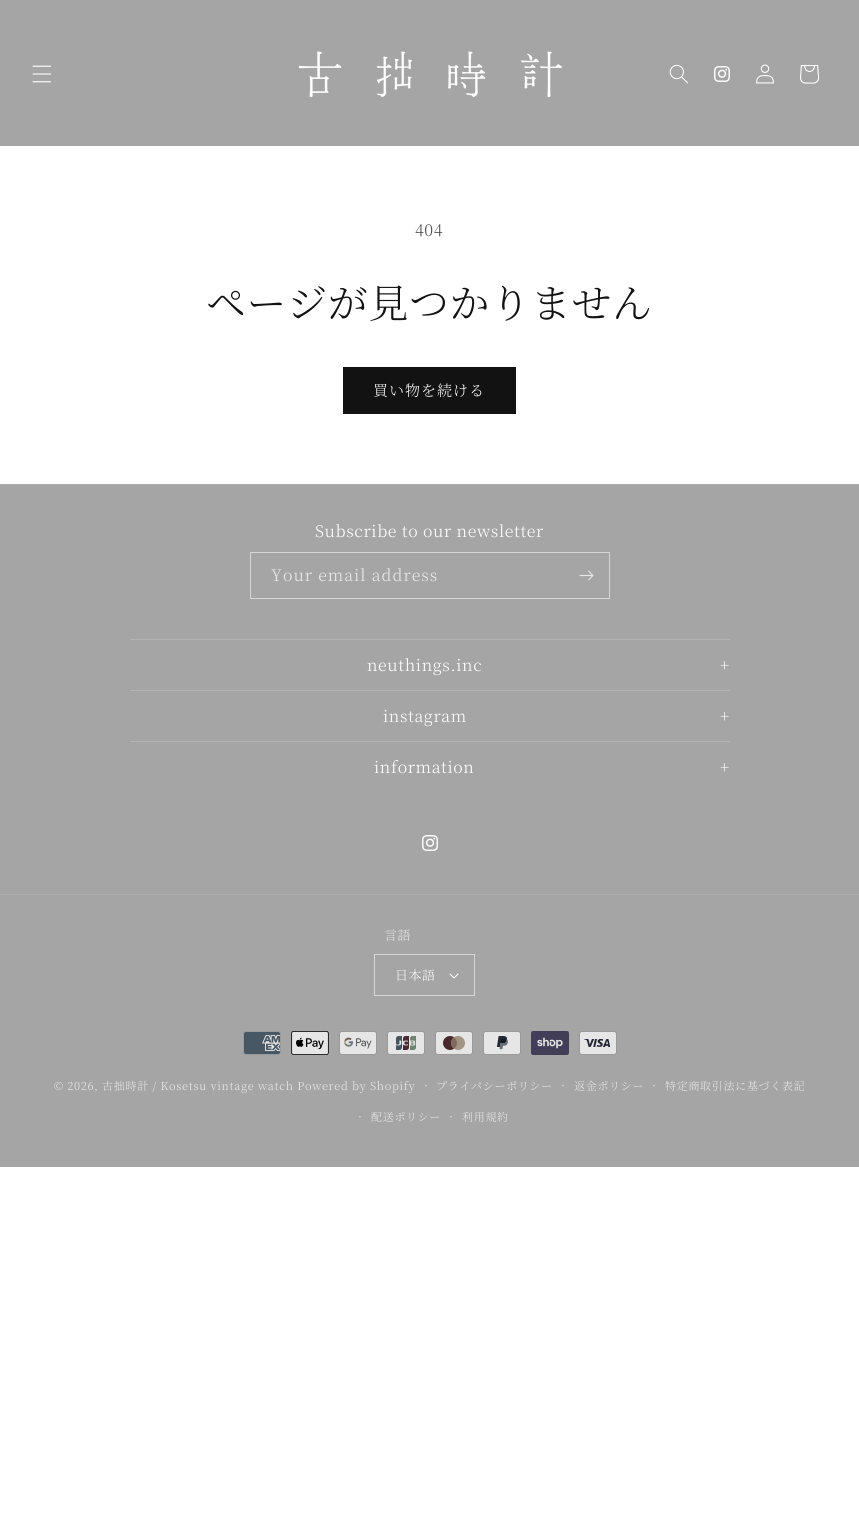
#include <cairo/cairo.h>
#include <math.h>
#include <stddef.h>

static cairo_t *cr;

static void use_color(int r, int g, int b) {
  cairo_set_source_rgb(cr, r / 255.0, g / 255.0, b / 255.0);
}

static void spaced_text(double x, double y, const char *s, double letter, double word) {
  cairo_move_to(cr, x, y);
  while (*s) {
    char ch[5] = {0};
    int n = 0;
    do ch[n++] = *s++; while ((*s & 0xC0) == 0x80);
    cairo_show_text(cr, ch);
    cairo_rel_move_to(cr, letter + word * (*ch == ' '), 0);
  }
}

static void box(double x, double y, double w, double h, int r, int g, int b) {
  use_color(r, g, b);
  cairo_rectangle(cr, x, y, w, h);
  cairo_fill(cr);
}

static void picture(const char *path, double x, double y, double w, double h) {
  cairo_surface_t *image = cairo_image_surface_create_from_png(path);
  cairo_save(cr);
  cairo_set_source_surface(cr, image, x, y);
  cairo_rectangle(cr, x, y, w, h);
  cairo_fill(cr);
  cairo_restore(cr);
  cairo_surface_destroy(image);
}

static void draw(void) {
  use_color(255, 255, 255);
  cairo_paint(cr);
  box(0, 0, 859, 146, 165, 165, 165);
  picture("img_01.png", 32, 65, 19, 18);
  picture("img_02.png", 298, 51, 264, 47);
  picture("img_03.png", 669, 64, 19, 20);
  picture("img_04.png", 714, 66, 16, 16);
  picture("img_05.png", 756, 64, 18, 20);
  picture("img_06.png", 800, 65, 20, 19);
  box(343, 367, 173, 47, 18, 18, 18);
  box(0, 485, 859, 682, 165, 165, 165);
  box(0, 484, 859, 1, 172, 172, 172);
  cairo_rectangle(cr, 250.5, 552.5, 359, 46);
  use_color(215, 215, 215);
  cairo_set_line_width(cr, 1);
  cairo_stroke(cr);
  picture("img_07.png", 579, 570, 15, 11);
  box(130, 639, 600, 1, 179, 179, 179);
  box(130, 690, 600, 1, 179, 179, 179);
  box(130, 741, 600, 1, 179, 179, 179);
  picture("img_04.png", 422, 835, 16, 16);
  box(0, 894, 859, 1, 172, 172, 172);
  picture("img_08.png", 449, 973, 10, 6);
  cairo_rectangle(cr, 374.5, 954.5, 100, 41);
  use_color(215, 215, 215);
  cairo_stroke(cr);
  picture("img_09.png", 243, 1031, 38, 24);
  picture("img_10.png", 291, 1031, 38, 24);
  picture("img_11.png", 339, 1031, 38, 24);
  picture("img_12.png", 387, 1031, 38, 24);
  picture("img_13.png", 435, 1031, 38, 24);
  picture("img_14.png", 483, 1031, 38, 24);
  picture("img_15.png", 531, 1031, 38, 24);
  picture("img_16.png", 579, 1031, 38, 24);
  cairo_select_font_face(cr, "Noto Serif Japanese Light", CAIRO_FONT_SLANT_NORMAL, CAIRO_FONT_WEIGHT_NORMAL);
  cairo_set_font_size(cr, 16);
  use_color(77, 77, 77);
  spaced_text(415, 236, "404", 0.6, 0);
  cairo_set_font_size(cr, 40);
  use_color(18, 18, 18);
  spaced_text(206, 318, "ページが見つかりません", 0.6, 0);
  cairo_set_font_size(cr, 15);
  use_color(255, 255, 255);
  spaced_text(373, 396, "買い物を続ける", 1, 0);
  cairo_set_font_size(cr, 16);
  spaced_text(315, 537, "Subscribe to our newsletter", 0.6, 0);
  use_color(233, 233, 233);
  spaced_text(271, 581, "Your email address", 1, 0);
  use_color(255, 255, 255);
  spaced_text(367, 671, "neuthings.inc", 0.6, 0);
  spaced_text(720, 671, "+", 0.6, 0);
  spaced_text(383, 722, "instagram", 0.6, 0);
  spaced_text(720, 722, "+", 0.6, 0);
  spaced_text(374, 773, "information", 0.6, 0);
  spaced_text(720, 773, "+", 0.6, 0);
  cairo_set_font_size(cr, 13);
  use_color(233, 233, 233);
  spaced_text(384, 940, "言語", 0.5, 0);
  use_color(255, 255, 255);
  spaced_text(395, 980, "日本語", 0.5, 0);
  cairo_set_font_size(cr, 11);
  use_color(233, 233, 233);
  spaced_text(54, 1090, "© 2026, 古拙時計 / Kosetsu vintage watch Powered by Shopify", 0.7, 0);
  cairo_set_font_size(cr, 12);
  spaced_text(424, 1090, "·", 0.7, 0);
  cairo_set_font_size(cr, 11);
  spaced_text(436, 1090, "プライバシーポリシー", 0.7, 0);
  cairo_set_font_size(cr, 12);
  spaced_text(561, 1090, "·", 0.7, 0);
  cairo_set_font_size(cr, 11);
  spaced_text(574, 1090, "返金ポリシー", 0.7, 0);
  cairo_set_font_size(cr, 12);
  spaced_text(652, 1090, "·", 0.7, 0);
  cairo_set_font_size(cr, 11);
  spaced_text(665, 1090, "特定商取引法に基づく表記", 0.7, 0);
  cairo_set_font_size(cr, 12);
  spaced_text(358, 1121, "·", 0.7, 0);
  cairo_set_font_size(cr, 11);
  spaced_text(371, 1121, "配送ポリシー", 0.7, 0);
  cairo_set_font_size(cr, 12);
  spaced_text(449, 1121, "·", 0.7, 0);
  cairo_set_font_size(cr, 11);
  spaced_text(462, 1121, "利用規約", 0.7, 0);
}

int main(void) {
  cairo_surface_t *surface = cairo_image_surface_create(CAIRO_FORMAT_RGB24, 859, 1522);
  cr = cairo_create(surface);
  cairo_font_options_t *options = cairo_font_options_create();
  cairo_font_options_set_hint_metrics(options, CAIRO_HINT_METRICS_OFF);
  cairo_font_options_set_hint_style(options, CAIRO_HINT_STYLE_NONE);
  cairo_set_font_options(cr, options);
  cairo_set_miter_limit(cr, 4);
  draw();
  cairo_surface_write_to_png(surface, "out.png");
  cairo_font_options_destroy(options);
  cairo_destroy(cr);
  cairo_surface_destroy(surface);
  return 0;
}
